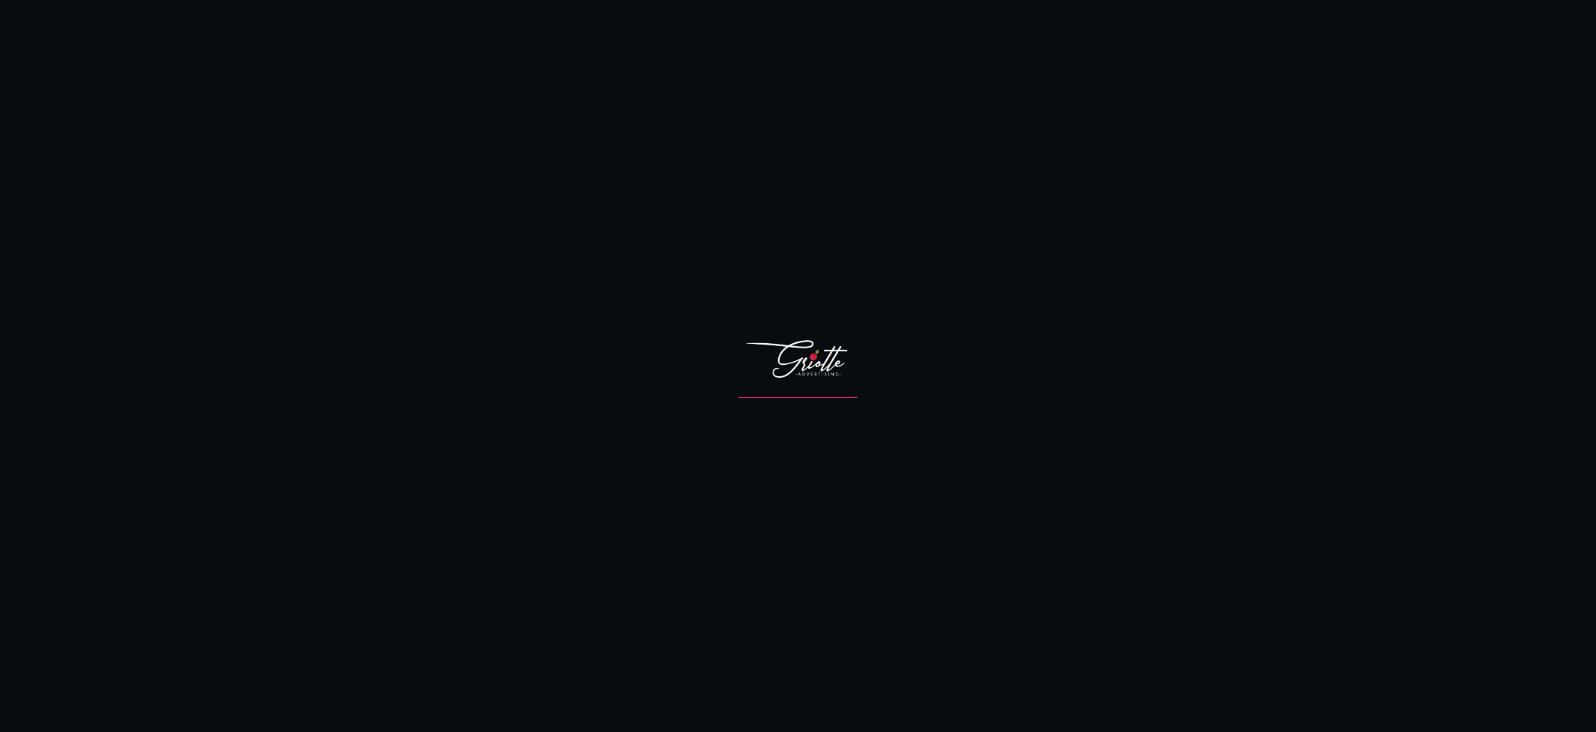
#include <cairo/cairo.h>
#include <math.h>
#include <stddef.h>

static cairo_t *cr;

static void use_color(int r, int g, int b) {
  cairo_set_source_rgb(cr, r / 255.0, g / 255.0, b / 255.0);
}

static void box(double x, double y, double w, double h, int r, int g, int b) {
  use_color(r, g, b);
  cairo_rectangle(cr, x, y, w, h);
  cairo_fill(cr);
}

static void picture(const char *path, double x, double y, double w, double h) {
  cairo_surface_t *image = cairo_image_surface_create_from_png(path);
  cairo_save(cr);
  cairo_set_source_surface(cr, image, x, y);
  cairo_rectangle(cr, x, y, w, h);
  cairo_fill(cr);
  cairo_restore(cr);
  cairo_surface_destroy(image);
}

static void draw(void) {
  use_color(9, 12, 15);
  cairo_paint(cr);
  picture("img_01.png", 746, 340, 102, 38);
  box(739, 397, 118, 1, 225, 42, 91);
}

int main(void) {
  cairo_surface_t *surface = cairo_image_surface_create(CAIRO_FORMAT_RGB24, 1596, 732);
  cr = cairo_create(surface);
  cairo_font_options_t *options = cairo_font_options_create();
  cairo_font_options_set_hint_metrics(options, CAIRO_HINT_METRICS_OFF);
  cairo_font_options_set_hint_style(options, CAIRO_HINT_STYLE_NONE);
  cairo_set_font_options(cr, options);
  cairo_set_miter_limit(cr, 4);
  draw();
  cairo_surface_write_to_png(surface, "out.png");
  cairo_font_options_destroy(options);
  cairo_destroy(cr);
  cairo_surface_destroy(surface);
  return 0;
}
